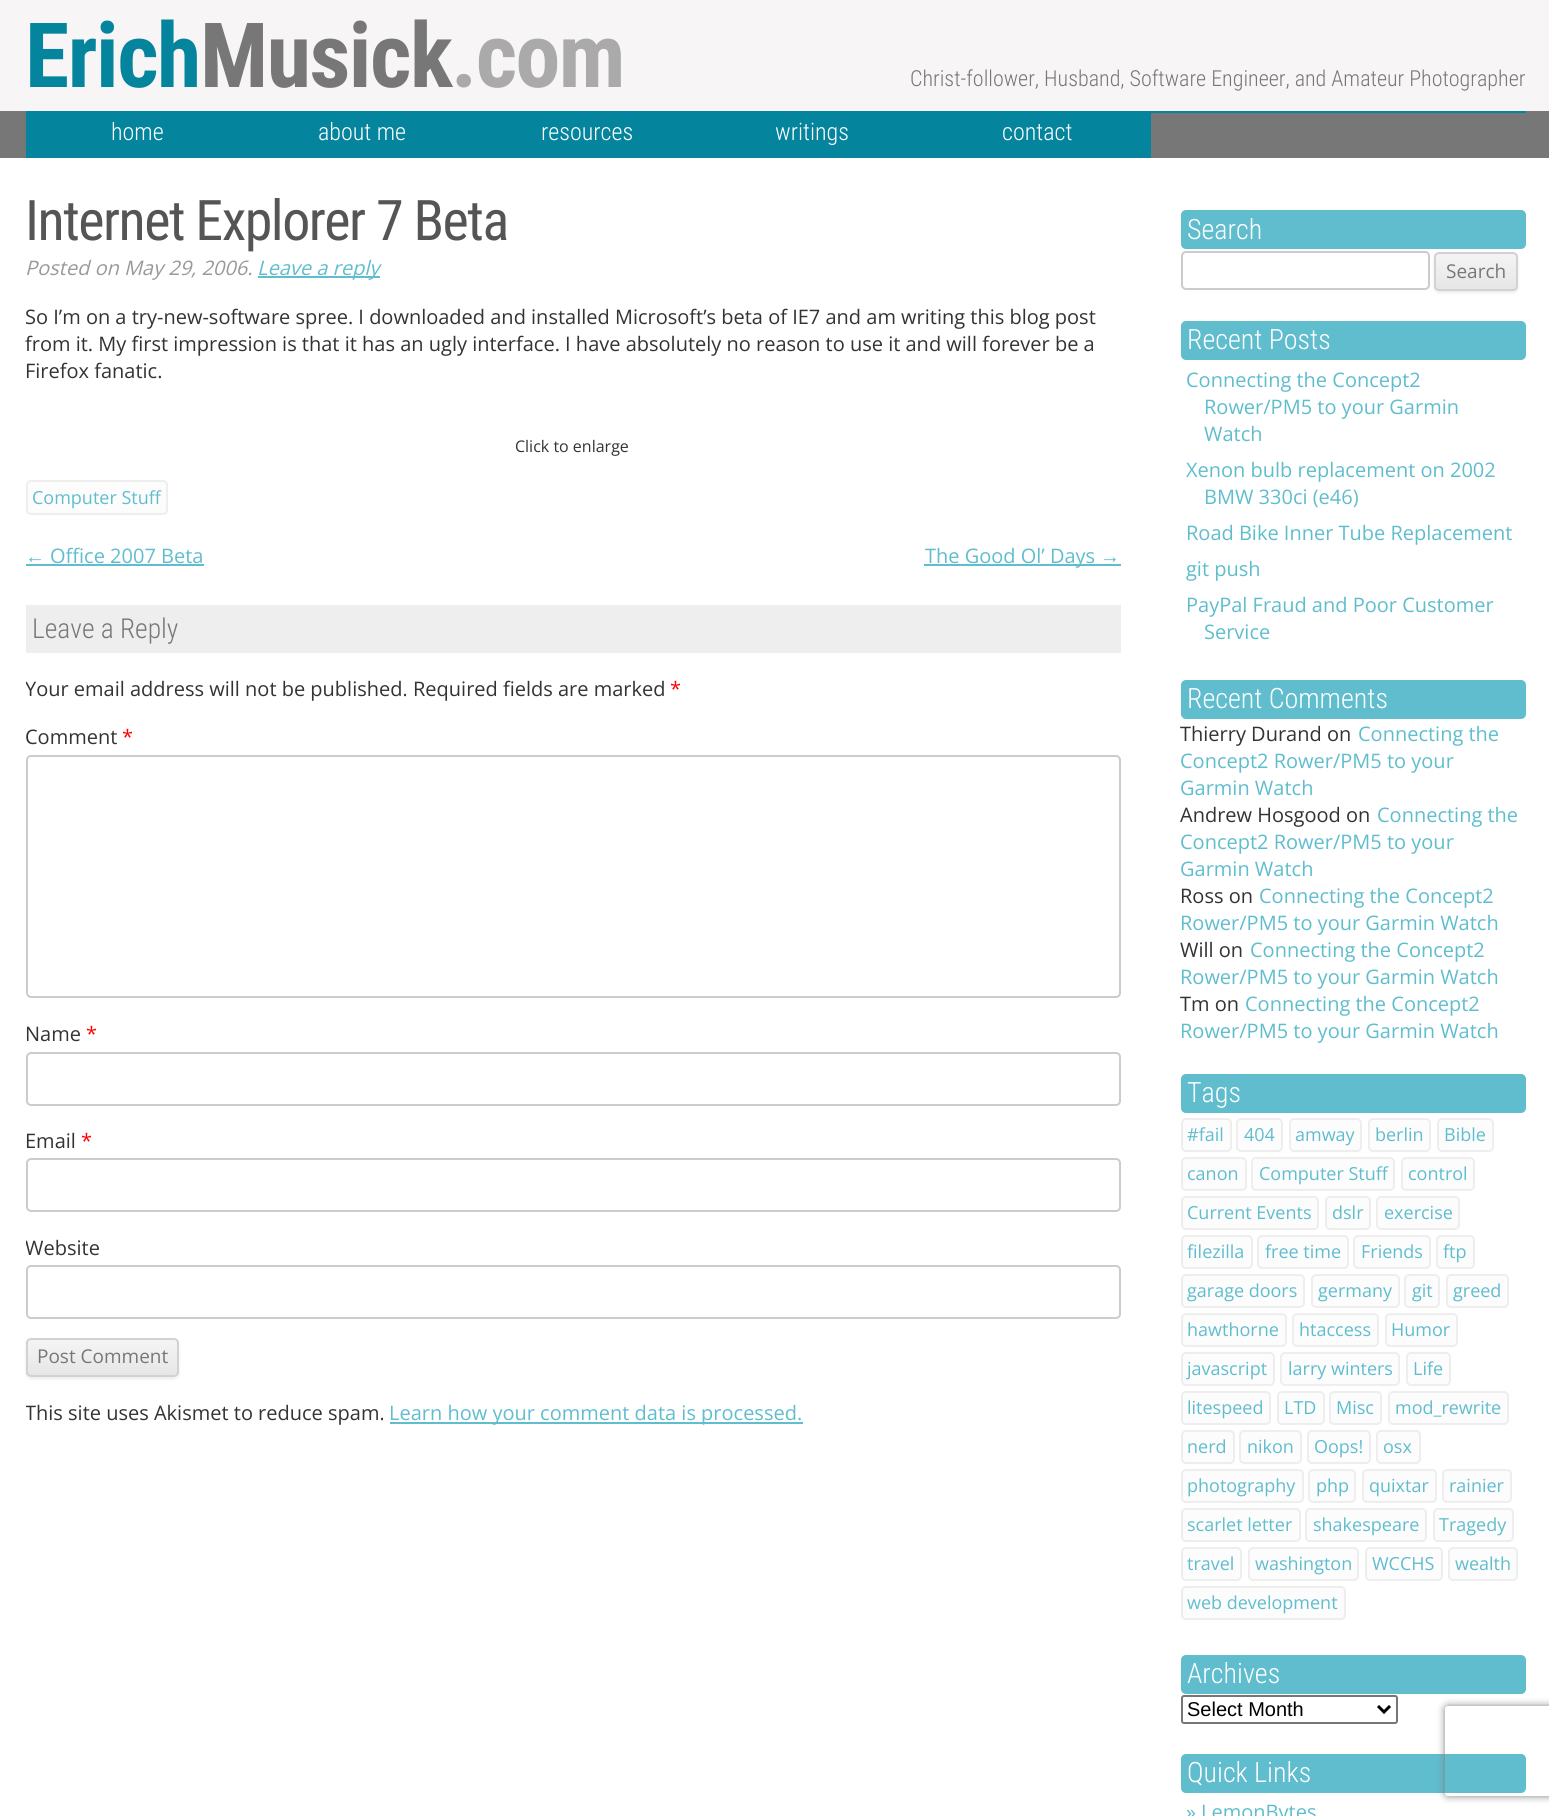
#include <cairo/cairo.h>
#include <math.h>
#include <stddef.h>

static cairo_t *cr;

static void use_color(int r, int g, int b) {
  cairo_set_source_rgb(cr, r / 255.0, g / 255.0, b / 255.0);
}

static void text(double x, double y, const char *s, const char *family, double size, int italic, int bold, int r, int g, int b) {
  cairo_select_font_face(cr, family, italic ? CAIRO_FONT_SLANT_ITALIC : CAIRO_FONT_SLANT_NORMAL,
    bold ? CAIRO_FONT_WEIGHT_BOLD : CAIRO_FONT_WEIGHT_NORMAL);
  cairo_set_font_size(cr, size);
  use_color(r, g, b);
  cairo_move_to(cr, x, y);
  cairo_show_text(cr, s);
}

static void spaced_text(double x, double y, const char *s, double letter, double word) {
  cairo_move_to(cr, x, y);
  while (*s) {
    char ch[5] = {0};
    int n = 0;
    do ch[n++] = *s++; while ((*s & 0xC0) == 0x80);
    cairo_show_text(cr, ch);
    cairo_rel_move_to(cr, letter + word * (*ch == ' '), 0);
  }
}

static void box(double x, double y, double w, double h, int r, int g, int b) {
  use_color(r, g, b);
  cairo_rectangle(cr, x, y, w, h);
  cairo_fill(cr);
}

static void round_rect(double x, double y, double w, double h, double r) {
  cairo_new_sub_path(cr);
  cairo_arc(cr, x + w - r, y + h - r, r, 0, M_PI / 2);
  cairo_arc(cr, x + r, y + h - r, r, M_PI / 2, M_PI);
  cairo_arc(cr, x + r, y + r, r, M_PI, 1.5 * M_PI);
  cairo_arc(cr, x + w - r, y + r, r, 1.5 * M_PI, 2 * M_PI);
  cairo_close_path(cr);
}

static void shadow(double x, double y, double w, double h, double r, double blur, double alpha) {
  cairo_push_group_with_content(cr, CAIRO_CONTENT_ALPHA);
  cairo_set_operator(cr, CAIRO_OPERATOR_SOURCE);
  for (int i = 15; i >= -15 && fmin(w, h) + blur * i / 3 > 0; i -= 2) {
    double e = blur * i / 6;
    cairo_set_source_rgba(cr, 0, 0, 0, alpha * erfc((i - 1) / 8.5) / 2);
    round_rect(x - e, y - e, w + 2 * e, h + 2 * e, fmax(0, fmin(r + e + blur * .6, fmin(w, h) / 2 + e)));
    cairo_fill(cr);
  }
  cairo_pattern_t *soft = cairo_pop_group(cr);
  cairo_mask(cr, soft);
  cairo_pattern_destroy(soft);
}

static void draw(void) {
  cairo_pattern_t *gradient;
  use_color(255, 255, 255);
  cairo_paint(cr);
  box(0, 0, 1549, 111, 248, 245, 246);
  box(0, 111, 1549, 47, 119, 119, 119);
  box(26, 111, 1500, 2, 4, 133, 157);
  box(26, 113, 1125, 45, 4, 133, 157);
  box(258, 276, 122, 2, 95, 189, 206);
  use_color(252, 252, 252);
  round_rect(27, 481, 140, 33, 4);
  cairo_fill_preserve(cr);
  use_color(238, 238, 238);
  cairo_stroke(cr);
  box(26, 564, 178, 2, 95, 189, 206);
  box(924, 564, 197, 2, 95, 189, 206);
  box(26, 605, 1095, 48, 238, 238, 238);
  round_rect(27, 756, 1093, 241, 4);
  use_color(204, 204, 204);
  cairo_stroke(cr);
  round_rect(27, 1053, 1093, 52, 4);
  cairo_stroke(cr);
  round_rect(27, 1159, 1093, 52, 4);
  cairo_stroke(cr);
  round_rect(27, 1266, 1093, 52, 4);
  cairo_stroke(cr);
  cairo_save(cr);
  cairo_set_fill_rule(cr, CAIRO_FILL_RULE_EVEN_ODD);
  cairo_new_path(cr);
  cairo_move_to(cr, 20, 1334);
  cairo_line_to(cr, 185, 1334);
  cairo_line_to(cr, 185, 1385);
  cairo_line_to(cr, 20, 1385);
  cairo_close_path(cr);
  cairo_move_to(cr, 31, 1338);
  cairo_line_to(cr, 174, 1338);
  cairo_curve_to(cr, 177, 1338, 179, 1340, 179, 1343);
  cairo_line_to(cr, 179, 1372);
  cairo_curve_to(cr, 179, 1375, 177, 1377, 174, 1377);
  cairo_line_to(cr, 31, 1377);
  cairo_curve_to(cr, 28, 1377, 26, 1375, 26, 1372);
  cairo_line_to(cr, 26, 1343);
  cairo_curve_to(cr, 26, 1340, 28, 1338, 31, 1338);
  cairo_close_path(cr);
  cairo_clip(cr);
  use_color(64, 64, 64);
  shadow(26, 1340, 153, 39, 5, 1.5, 0.1);
  cairo_restore(cr);
  cairo_save(cr);
  round_rect(26, 1338, 153, 39, 5);
  cairo_clip(cr);
  gradient = cairo_pattern_create_linear(102, 1340, 102, 1376);
  cairo_pattern_add_color_stop_rgba(gradient, 0, 0.957, 0.957, 0.957, 1);
  cairo_pattern_add_color_stop_rgba(gradient, 1, 0.902, 0.902, 0.902, 1);
  cairo_set_source(cr, gradient);
  cairo_pattern_destroy(gradient);
  cairo_rectangle(cr, 26, 1340, 153, 36);
  cairo_fill(cr);
  cairo_restore(cr);
  round_rect(27, 1339, 151, 37, 4);
  use_color(210, 210, 210);
  cairo_stroke(cr);
  box(390, 1422, 413, 2, 95, 189, 206);
  round_rect(1181, 210, 345, 39, 5);
  cairo_fill(cr);
  round_rect(1182, 252, 247, 37, 4);
  use_color(204, 204, 204);
  cairo_stroke(cr);
  use_color(64, 64, 64);
  shadow(1434, 254, 84, 39, 5, 1.5, 0.1);
  cairo_save(cr);
  round_rect(1434, 252, 84, 39, 5);
  cairo_clip(cr);
  gradient = cairo_pattern_create_linear(1476, 254, 1476, 290);
  cairo_pattern_add_color_stop_rgba(gradient, 0, 0.957, 0.957, 0.957, 1);
  cairo_pattern_add_color_stop_rgba(gradient, 1, 0.902, 0.902, 0.902, 1);
  cairo_set_source(cr, gradient);
  cairo_pattern_destroy(gradient);
  cairo_rectangle(cr, 1434, 254, 84, 36);
  cairo_fill(cr);
  cairo_restore(cr);
  round_rect(1435, 253, 82, 37, 4);
  use_color(210, 210, 210);
  cairo_stroke(cr);
  use_color(95, 189, 206);
  round_rect(1181, 321, 345, 39, 5);
  cairo_fill(cr);
  round_rect(1181, 680, 345, 39, 5);
  cairo_fill(cr);
  round_rect(1181, 1074, 345, 39, 5);
  cairo_fill(cr);
  use_color(252, 252, 252);
  round_rect(1182, 1119, 49, 32, 4);
  cairo_fill_preserve(cr);
  use_color(238, 238, 238);
  cairo_stroke(cr);
  use_color(252, 252, 252);
  round_rect(1237, 1119, 45, 32, 4);
  cairo_fill_preserve(cr);
  use_color(238, 238, 238);
  cairo_stroke(cr);
  use_color(252, 252, 252);
  round_rect(1290, 1119, 71, 32, 4);
  cairo_fill_preserve(cr);
  use_color(238, 238, 238);
  cairo_stroke(cr);
  use_color(252, 252, 252);
  round_rect(1369, 1119, 61, 32, 4);
  cairo_fill_preserve(cr);
  use_color(238, 238, 238);
  cairo_stroke(cr);
  use_color(252, 252, 252);
  round_rect(1438, 1119, 55, 32, 4);
  cairo_fill_preserve(cr);
  use_color(238, 238, 238);
  cairo_stroke(cr);
  use_color(252, 252, 252);
  round_rect(1182, 1158, 64, 32, 4);
  cairo_fill_preserve(cr);
  use_color(238, 238, 238);
  cairo_stroke(cr);
  use_color(252, 252, 252);
  round_rect(1252, 1158, 142, 32, 4);
  cairo_fill_preserve(cr);
  use_color(238, 238, 238);
  cairo_stroke(cr);
  use_color(252, 252, 252);
  round_rect(1402, 1158, 72, 32, 4);
  cairo_fill_preserve(cr);
  use_color(238, 238, 238);
  cairo_stroke(cr);
  use_color(252, 252, 252);
  round_rect(1182, 1197, 136, 32, 4);
  cairo_fill_preserve(cr);
  use_color(238, 238, 238);
  cairo_stroke(cr);
  use_color(252, 252, 252);
  round_rect(1326, 1197, 44, 32, 4);
  cairo_fill_preserve(cr);
  use_color(238, 238, 238);
  cairo_stroke(cr);
  use_color(252, 252, 252);
  round_rect(1377, 1197, 82, 32, 4);
  cairo_fill_preserve(cr);
  use_color(238, 238, 238);
  cairo_stroke(cr);
  use_color(252, 252, 252);
  round_rect(1182, 1236, 70, 32, 4);
  cairo_fill_preserve(cr);
  use_color(238, 238, 238);
  cairo_stroke(cr);
  use_color(252, 252, 252);
  round_rect(1258, 1236, 90, 32, 4);
  cairo_fill_preserve(cr);
  use_color(238, 238, 238);
  cairo_stroke(cr);
  use_color(252, 252, 252);
  round_rect(1354, 1236, 76, 32, 4);
  cairo_fill_preserve(cr);
  use_color(238, 238, 238);
  cairo_stroke(cr);
  use_color(252, 252, 252);
  round_rect(1437, 1236, 37, 32, 4);
  cairo_fill_preserve(cr);
  use_color(238, 238, 238);
  cairo_stroke(cr);
  use_color(252, 252, 252);
  round_rect(1182, 1275, 122, 32, 4);
  cairo_fill_preserve(cr);
  use_color(238, 238, 238);
  cairo_stroke(cr);
  use_color(252, 252, 252);
  round_rect(1312, 1275, 87, 32, 4);
  cairo_fill_preserve(cr);
  use_color(238, 238, 238);
  cairo_stroke(cr);
  use_color(252, 252, 252);
  round_rect(1405, 1275, 34, 32, 4);
  cairo_fill_preserve(cr);
  use_color(238, 238, 238);
  cairo_stroke(cr);
  use_color(252, 252, 252);
  round_rect(1447, 1275, 61, 32, 4);
  cairo_fill_preserve(cr);
  use_color(238, 238, 238);
  cairo_stroke(cr);
  use_color(252, 252, 252);
  round_rect(1182, 1314, 104, 32, 4);
  cairo_fill_preserve(cr);
  use_color(238, 238, 238);
  cairo_stroke(cr);
  use_color(252, 252, 252);
  round_rect(1293, 1314, 85, 32, 4);
  cairo_fill_preserve(cr);
  use_color(238, 238, 238);
  cairo_stroke(cr);
  use_color(252, 252, 252);
  round_rect(1386, 1314, 71, 32, 4);
  cairo_fill_preserve(cr);
  use_color(238, 238, 238);
  cairo_stroke(cr);
  use_color(252, 252, 252);
  round_rect(1182, 1353, 92, 32, 4);
  cairo_fill_preserve(cr);
  use_color(238, 238, 238);
  cairo_stroke(cr);
  use_color(252, 252, 252);
  round_rect(1281, 1353, 118, 32, 4);
  cairo_fill_preserve(cr);
  use_color(238, 238, 238);
  cairo_stroke(cr);
  use_color(252, 252, 252);
  round_rect(1407, 1353, 43, 32, 4);
  cairo_fill_preserve(cr);
  use_color(238, 238, 238);
  cairo_stroke(cr);
  use_color(252, 252, 252);
  round_rect(1182, 1392, 88, 32, 4);
  cairo_fill_preserve(cr);
  use_color(238, 238, 238);
  cairo_stroke(cr);
  use_color(252, 252, 252);
  round_rect(1278, 1392, 46, 32, 4);
  cairo_fill_preserve(cr);
  use_color(238, 238, 238);
  cairo_stroke(cr);
  use_color(252, 252, 252);
  round_rect(1330, 1392, 51, 32, 4);
  cairo_fill_preserve(cr);
  use_color(238, 238, 238);
  cairo_stroke(cr);
  use_color(252, 252, 252);
  round_rect(1389, 1392, 119, 32, 4);
  cairo_fill_preserve(cr);
  use_color(238, 238, 238);
  cairo_stroke(cr);
  use_color(252, 252, 252);
  round_rect(1182, 1431, 52, 32, 4);
  cairo_fill_preserve(cr);
  use_color(238, 238, 238);
  cairo_stroke(cr);
  use_color(252, 252, 252);
  round_rect(1240, 1431, 61, 32, 4);
  cairo_fill_preserve(cr);
  use_color(238, 238, 238);
  cairo_stroke(cr);
  use_color(252, 252, 252);
  round_rect(1308, 1431, 62, 32, 4);
  cairo_fill_preserve(cr);
  use_color(238, 238, 238);
  cairo_stroke(cr);
  use_color(252, 252, 252);
  round_rect(1377, 1431, 43, 32, 4);
  cairo_fill_preserve(cr);
  use_color(238, 238, 238);
  cairo_stroke(cr);
  use_color(252, 252, 252);
  round_rect(1182, 1470, 121, 32, 4);
  cairo_fill_preserve(cr);
  use_color(238, 238, 238);
  cairo_stroke(cr);
  use_color(252, 252, 252);
  round_rect(1309, 1470, 46, 32, 4);
  cairo_fill_preserve(cr);
  use_color(238, 238, 238);
  cairo_stroke(cr);
  use_color(252, 252, 252);
  round_rect(1363, 1470, 73, 32, 4);
  cairo_fill_preserve(cr);
  use_color(238, 238, 238);
  cairo_stroke(cr);
  use_color(252, 252, 252);
  round_rect(1443, 1470, 68, 32, 4);
  cairo_fill_preserve(cr);
  use_color(238, 238, 238);
  cairo_stroke(cr);
  use_color(252, 252, 252);
  round_rect(1182, 1509, 118, 32, 4);
  cairo_fill_preserve(cr);
  use_color(238, 238, 238);
  cairo_stroke(cr);
  use_color(252, 252, 252);
  round_rect(1306, 1509, 120, 32, 4);
  cairo_fill_preserve(cr);
  use_color(238, 238, 238);
  cairo_stroke(cr);
  use_color(252, 252, 252);
  round_rect(1434, 1509, 79, 32, 4);
  cairo_fill_preserve(cr);
  use_color(238, 238, 238);
  cairo_stroke(cr);
  use_color(252, 252, 252);
  round_rect(1182, 1548, 59, 32, 4);
  cairo_fill_preserve(cr);
  use_color(238, 238, 238);
  cairo_stroke(cr);
  use_color(252, 252, 252);
  round_rect(1249, 1548, 109, 32, 4);
  cairo_fill_preserve(cr);
  use_color(238, 238, 238);
  cairo_stroke(cr);
  use_color(252, 252, 252);
  round_rect(1366, 1548, 76, 32, 4);
  cairo_fill_preserve(cr);
  use_color(238, 238, 238);
  cairo_stroke(cr);
  use_color(252, 252, 252);
  round_rect(1449, 1548, 68, 32, 4);
  cairo_fill_preserve(cr);
  use_color(238, 238, 238);
  cairo_stroke(cr);
  use_color(252, 252, 252);
  round_rect(1182, 1587, 163, 32, 4);
  cairo_fill_preserve(cr);
  use_color(238, 238, 238);
  cairo_stroke(cr);
  use_color(95, 189, 206);
  round_rect(1181, 1655, 345, 39, 5);
  cairo_fill(cr);
  round_rect(1182, 1696, 215, 27, 2);
  use_color(118, 118, 118);
  cairo_stroke(cr);
  cairo_new_path(cr);
  cairo_move_to(cr, 1378, 1706);
  cairo_line_to(cr, 1384, 1712);
  cairo_line_to(cr, 1390, 1706);
  use_color(0, 0, 0);
  cairo_set_line_width(cr, 3);
  cairo_stroke(cr);
  use_color(95, 189, 206);
  round_rect(1181, 1754, 345, 39, 5);
  cairo_fill(cr);
  cairo_save(cr);
  cairo_set_fill_rule(cr, CAIRO_FILL_RULE_EVEN_ODD);
  cairo_new_path(cr);
  cairo_move_to(cr, 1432, 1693);
  cairo_line_to(cr, 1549, 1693);
  cairo_line_to(cr, 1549, 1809);
  cairo_line_to(cr, 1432, 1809);
  cairo_close_path(cr);
  cairo_move_to(cr, 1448, 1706);
  cairo_line_to(cr, 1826, 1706);
  cairo_curve_to(cr, 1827.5, 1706, 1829, 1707.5, 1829, 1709);
  cairo_line_to(cr, 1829, 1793);
  cairo_curve_to(cr, 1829, 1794.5, 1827.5, 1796, 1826, 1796);
  cairo_line_to(cr, 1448, 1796);
  cairo_curve_to(cr, 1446.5, 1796, 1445, 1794.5, 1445, 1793);
  cairo_line_to(cr, 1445, 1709);
  cairo_curve_to(cr, 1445, 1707.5, 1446.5, 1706, 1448, 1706);
  cairo_close_path(cr);
  cairo_clip(cr);
  use_color(128, 128, 128);
  shadow(1445, 1706, 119, 90, 3, 4, 1);
  cairo_restore(cr);
  cairo_select_font_face(cr, "Roboto Condensed", CAIRO_FONT_SLANT_NORMAL, CAIRO_FONT_WEIGHT_BOLD);
  cairo_set_font_size(cr, 90);
  use_color(4, 133, 157);
  spaced_text(25, 87, "Erich", -1.5, 0);
  use_color(119, 119, 119);
  spaced_text(200, 87, "Musick", -1.5, 0);
  use_color(170, 170, 170);
  spaced_text(451, 87, ".com", -1.5, 0);
  text(910, 86, "Christ-follower, Husband, Software Engineer, and Amateur Photographer", "Roboto Condensed Light", 22, 0, 0, 119, 119, 119);
  text(111, 140, "home", "Roboto Condensed Light", 24, 0, 0, 255, 255, 255);
  text(318, 140, "about me", "Roboto Condensed Light", 24, 0, 0, 255, 255, 255);
  text(541, 140, "resources", "Roboto Condensed Light", 24, 0, 0, 255, 255, 255);
  text(775, 140, "writings", "Roboto Condensed Light", 24, 0, 0, 255, 255, 255);
  text(1002, 140, "contact", "Roboto Condensed Light", 24, 0, 0, 255, 255, 255);
  cairo_select_font_face(cr, "Roboto Condensed", CAIRO_FONT_SLANT_NORMAL, CAIRO_FONT_WEIGHT_NORMAL);
  cairo_set_font_size(cr, 56);
  use_color(85, 85, 85);
  spaced_text(25, 240, "Internet Explorer 7 Beta", -1.5, 0);
  text(25, 275, "Posted on May 29, 2006.", "Open Sans", 20, 1, 0, 153, 153, 153);
  text(257, 275, "Leave a reply", "Open Sans", 20, 1, 0, 95, 189, 206);
  text(25, 324, "So I’m on a try-new-software spree. I downloaded and installed Microsoft’s beta of IE7 and am writing this blog post", "Open Sans", 20, 0, 0, 51, 51, 51);
  text(25, 351, "from it. My first impression is that it has an ugly interface. I have absolutely no reason to use it and will forever be a", "Open Sans", 20, 0, 0, 51, 51, 51);
  text(25, 378, "Firefox fanatic.", "Open Sans", 20, 0, 0, 51, 51, 51);
  text(515, 452, "Click to enlarge", "Open Sans", 16, 0, 0, 51, 51, 51);
  text(32, 504, "Computer Stuff", "Open Sans", 18, 0, 0, 95, 189, 206);
  text(25, 563, "←", "Liberation Sans", 20, 0, 0, 95, 189, 206);
  text(50, 563, "Office 2007 Beta", "Open Sans", 20, 0, 0, 95, 189, 206);
  text(925, 563, "The Good Ol’ Days", "Open Sans", 20, 0, 0, 95, 189, 206);
  text(1100, 563, "→", "Liberation Sans", 20, 0, 0, 95, 189, 206);
  text(32, 638, "Leave a Reply", "Roboto Condensed Light", 27.5, 0, 0, 119, 119, 119);
  cairo_save(cr);
  cairo_rectangle(cr, 26, 158, 1500, 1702);
  cairo_clip(cr);
  text(25, 696, "Your email address will not be published.", "Open Sans", 20, 0, 0, 51, 51, 51);
  cairo_restore(cr);
  text(413, 696, "Required fields are marked", "Open Sans", 20, 0, 0, 51, 51, 51);
  text(670, 696, "*", "Open Sans", 20, 0, 0, 255, 0, 0);
  text(25, 744, "Comment", "Open Sans", 20, 0, 0, 51, 51, 51);
  text(122, 744, "*", "Open Sans", 20, 0, 0, 255, 0, 0);
  text(25, 1041, "Name", "Open Sans", 20, 0, 0, 51, 51, 51);
  text(86, 1041, "*", "Open Sans", 20, 0, 0, 255, 0, 0);
  text(25, 1148, "Email", "Open Sans", 20, 0, 0, 51, 51, 51);
  text(81, 1148, "*", "Open Sans", 20, 0, 0, 255, 0, 0);
  cairo_save(cr);
  cairo_rectangle(cr, 26, 158, 1500, 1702);
  cairo_clip(cr);
  text(25, 1255, "Website", "Open Sans", 20, 0, 0, 51, 51, 51);
  cairo_restore(cr);
  text(37, 1363, "Post Comment", "Open Sans", 19, 0, 0, 119, 119, 119);
  cairo_save(cr);
  cairo_rectangle(cr, 26, 158, 1500, 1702);
  cairo_clip(cr);
  text(25, 1420, "This site uses Akismet to reduce spam.", "Open Sans", 20, 0, 0, 51, 51, 51);
  cairo_restore(cr);
  text(389, 1420, "Learn how your comment data is processed.", "Open Sans", 20, 0, 0, 95, 189, 206);
  text(1187, 239, "Search", "Roboto Condensed Light", 28, 0, 0, 255, 255, 255);
  text(1446, 278, "Search", "Open Sans", 19, 0, 0, 119, 119, 119);
  text(1187, 349, "Recent Posts", "Roboto Condensed Light", 28, 0, 0, 255, 255, 255);
  text(1186, 387, "Connecting the Concept2", "Open Sans", 20, 0, 0, 95, 189, 206);
  text(1204, 414, "Rower/PM5 to your Garmin", "Open Sans", 20, 0, 0, 95, 189, 206);
  text(1204, 441, "Watch", "Open Sans", 20, 0, 0, 95, 189, 206);
  text(1186, 477, "Xenon bulb replacement on 2002", "Open Sans", 20, 0, 0, 95, 189, 206);
  text(1204, 504, "BMW 330ci (e46)", "Open Sans", 20, 0, 0, 95, 189, 206);
  text(1186, 540, "Road Bike Inner Tube Replacement", "Open Sans", 20, 0, 0, 95, 189, 206);
  text(1186, 576, "git push", "Open Sans", 20, 0, 0, 95, 189, 206);
  text(1186, 612, "PayPal Fraud and Poor Customer", "Open Sans", 20, 0, 0, 95, 189, 206);
  text(1204, 639, "Service", "Open Sans", 20, 0, 0, 95, 189, 206);
  text(1187, 708, "Recent Comments", "Roboto Condensed Light", 28, 0, 0, 255, 255, 255);
  text(1180, 741, "Thierry Durand on", "Open Sans", 20, 0, 0, 51, 51, 51);
  text(1358, 741, "Connecting the", "Open Sans", 20, 0, 0, 95, 189, 206);
  text(1180, 768, "Concept2 Rower/PM5 to your", "Open Sans", 20, 0, 0, 95, 189, 206);
  text(1180, 795, "Garmin Watch", "Open Sans", 20, 0, 0, 95, 189, 206);
  text(1180, 822, "Andrew Hosgood on", "Open Sans", 20, 0, 0, 51, 51, 51);
  text(1377, 822, "Connecting the", "Open Sans", 20, 0, 0, 95, 189, 206);
  text(1180, 849, "Concept2 Rower/PM5 to your", "Open Sans", 20, 0, 0, 95, 189, 206);
  text(1180, 876, "Garmin Watch", "Open Sans", 20, 0, 0, 95, 189, 206);
  text(1180, 903, "Ross on", "Open Sans", 20, 0, 0, 51, 51, 51);
  text(1259, 903, "Connecting the Concept2", "Open Sans", 20, 0, 0, 95, 189, 206);
  text(1180, 930, "Rower/PM5 to your Garmin Watch", "Open Sans", 20, 0, 0, 95, 189, 206);
  text(1180, 957, "Will on", "Open Sans", 20, 0, 0, 51, 51, 51);
  text(1250, 957, "Connecting the Concept2", "Open Sans", 20, 0, 0, 95, 189, 206);
  text(1180, 984, "Rower/PM5 to your Garmin Watch", "Open Sans", 20, 0, 0, 95, 189, 206);
  text(1180, 1011, "Tm on", "Open Sans", 20, 0, 0, 51, 51, 51);
  text(1245, 1011, "Connecting the Concept2", "Open Sans", 20, 0, 0, 95, 189, 206);
  text(1180, 1038, "Rower/PM5 to your Garmin Watch", "Open Sans", 20, 0, 0, 95, 189, 206);
  text(1187, 1102, "Tags", "Roboto Condensed Light", 28, 0, 0, 255, 255, 255);
  text(1187, 1141, "#fail", "Open Sans", 18, 0, 0, 95, 189, 206);
  text(1244, 1141, "404", "Open Sans", 18, 0, 0, 95, 189, 206);
  text(1295, 1141, "amway", "Open Sans", 18, 0, 0, 95, 189, 206);
  text(1375, 1141, "berlin", "Open Sans", 18, 0, 0, 95, 189, 206);
  text(1444, 1141, "Bible", "Open Sans", 18, 0, 0, 95, 189, 206);
  text(1187, 1180, "canon", "Open Sans", 18, 0, 0, 95, 189, 206);
  text(1259, 1180, "Computer Stuff", "Open Sans", 18, 0, 0, 95, 189, 206);
  text(1408, 1180, "control", "Open Sans", 18, 0, 0, 95, 189, 206);
  text(1187, 1219, "Current Events", "Open Sans", 18, 0, 0, 95, 189, 206);
  text(1332, 1219, "dslr", "Open Sans", 18, 0, 0, 95, 189, 206);
  text(1384, 1219, "exercise", "Open Sans", 18, 0, 0, 95, 189, 206);
  text(1187, 1258, "filezilla", "Open Sans", 18, 0, 0, 95, 189, 206);
  text(1265, 1258, "free time", "Open Sans", 18, 0, 0, 95, 189, 206);
  text(1361, 1258, "Friends", "Open Sans", 18, 0, 0, 95, 189, 206);
  text(1443, 1258, "ftp", "Open Sans", 18, 0, 0, 95, 189, 206);
  text(1187, 1297, "garage doors", "Open Sans", 18, 0, 0, 95, 189, 206);
  text(1318, 1297, "germany", "Open Sans", 18, 0, 0, 95, 189, 206);
  text(1412, 1297, "git", "Open Sans", 18, 0, 0, 95, 189, 206);
  text(1453, 1297, "greed", "Open Sans", 18, 0, 0, 95, 189, 206);
  text(1187, 1336, "hawthorne", "Open Sans", 18, 0, 0, 95, 189, 206);
  text(1299, 1336, "htaccess", "Open Sans", 18, 0, 0, 95, 189, 206);
  text(1391, 1336, "Humor", "Open Sans", 18, 0, 0, 95, 189, 206);
  text(1187, 1375, "javascript", "Open Sans", 18, 0, 0, 95, 189, 206);
  text(1288, 1375, "larry winters", "Open Sans", 18, 0, 0, 95, 189, 206);
  text(1413, 1375, "Life", "Open Sans", 18, 0, 0, 95, 189, 206);
  text(1187, 1414, "litespeed", "Open Sans", 18, 0, 0, 95, 189, 206);
  text(1284, 1414, "LTD", "Open Sans", 18, 0, 0, 95, 189, 206);
  text(1336, 1414, "Misc", "Open Sans", 18, 0, 0, 95, 189, 206);
  text(1395, 1414, "mod_rewrite", "Open Sans", 18, 0, 0, 95, 189, 206);
  text(1187, 1453, "nerd", "Open Sans", 18, 0, 0, 95, 189, 206);
  text(1247, 1453, "nikon", "Open Sans", 18, 0, 0, 95, 189, 206);
  text(1314, 1453, "Oops!", "Open Sans", 18, 0, 0, 95, 189, 206);
  text(1383, 1453, "osx", "Open Sans", 18, 0, 0, 95, 189, 206);
  text(1187, 1492, "photography", "Open Sans", 18, 0, 0, 95, 189, 206);
  text(1316, 1492, "php", "Open Sans", 18, 0, 0, 95, 189, 206);
  text(1369, 1492, "quixtar", "Open Sans", 18, 0, 0, 95, 189, 206);
  text(1449, 1492, "rainier", "Open Sans", 18, 0, 0, 95, 189, 206);
  text(1187, 1531, "scarlet letter", "Open Sans", 18, 0, 0, 95, 189, 206);
  text(1313, 1531, "shakespeare", "Open Sans", 18, 0, 0, 95, 189, 206);
  text(1439, 1531, "Tragedy", "Open Sans", 18, 0, 0, 95, 189, 206);
  text(1187, 1570, "travel", "Open Sans", 18, 0, 0, 95, 189, 206);
  text(1255, 1570, "washington", "Open Sans", 18, 0, 0, 95, 189, 206);
  text(1372, 1570, "WCCHS", "Open Sans", 18, 0, 0, 95, 189, 206);
  text(1455, 1570, "wealth", "Open Sans", 18, 0, 0, 95, 189, 206);
  text(1187, 1609, "web development", "Open Sans", 18, 0, 0, 95, 189, 206);
  text(1187, 1683, "Archives", "Roboto Condensed Light", 28, 0, 0, 255, 255, 255);
  text(1187, 1716, "Select Month", "Liberation Sans", 20, 0, 0, 0, 0, 0);
  text(1187, 1782, "Quick Links", "Roboto Condensed Light", 28, 0, 0, 255, 255, 255);
  text(1186, 1819, "» LemonBytes", "Open Sans", 20, 0, 0, 95, 189, 206);
}

int main(void) {
  cairo_surface_t *surface = cairo_image_surface_create(CAIRO_FORMAT_RGB24, 1549, 1816);
  cr = cairo_create(surface);
  cairo_font_options_t *options = cairo_font_options_create();
  cairo_font_options_set_hint_metrics(options, CAIRO_HINT_METRICS_OFF);
  cairo_font_options_set_hint_style(options, CAIRO_HINT_STYLE_NONE);
  cairo_set_font_options(cr, options);
  cairo_set_miter_limit(cr, 4);
  draw();
  cairo_surface_write_to_png(surface, "out.png");
  cairo_font_options_destroy(options);
  cairo_destroy(cr);
  cairo_surface_destroy(surface);
  return 0;
}
